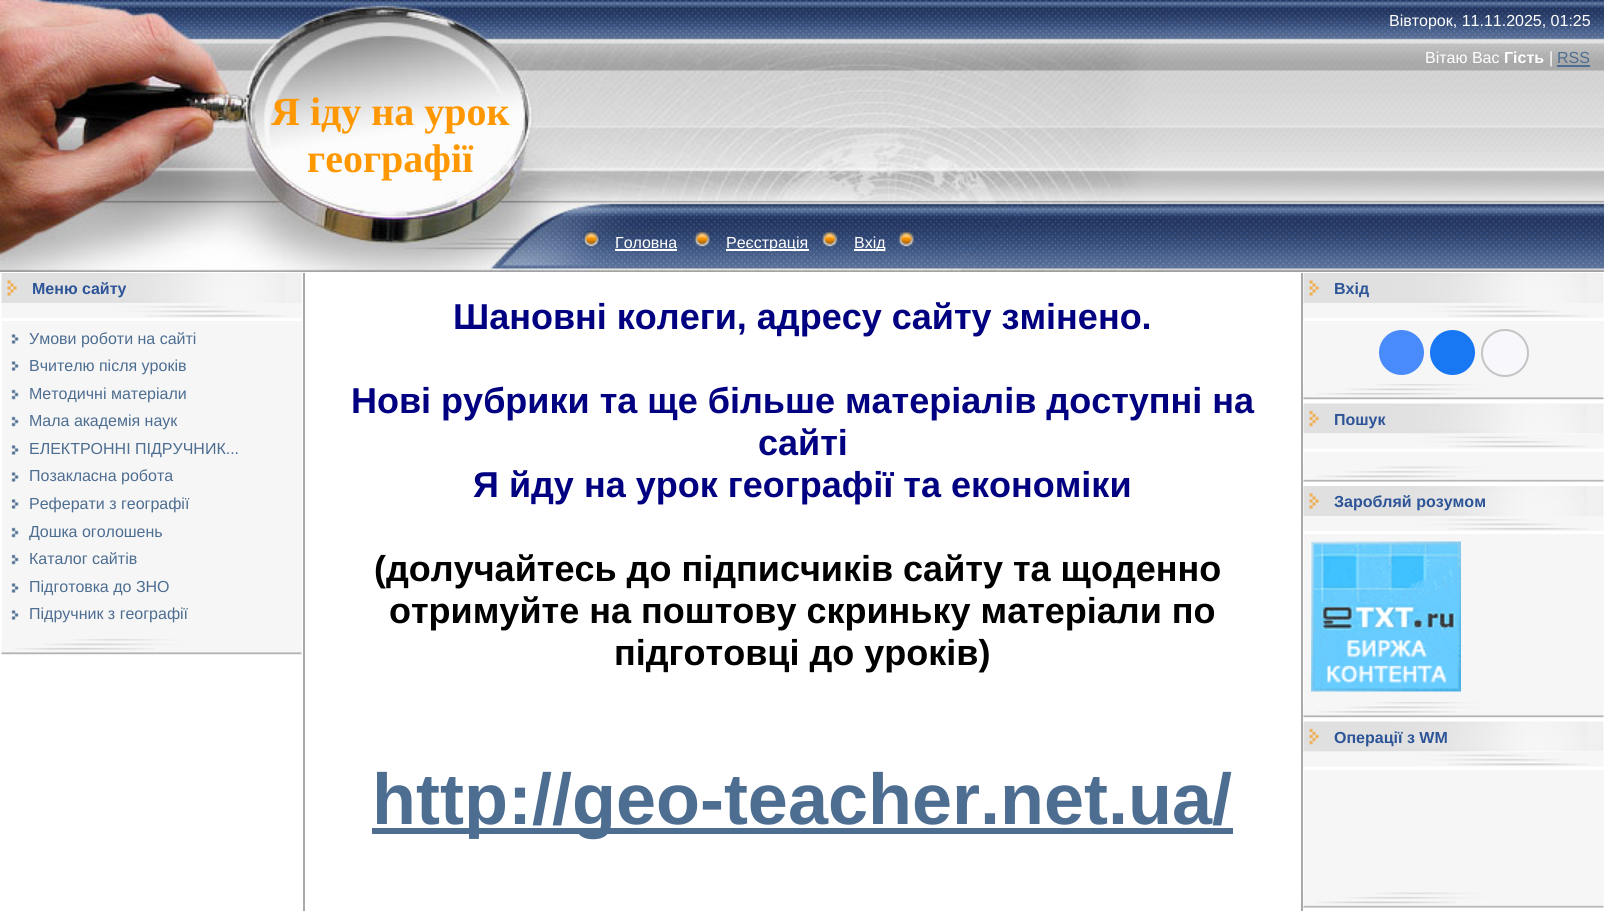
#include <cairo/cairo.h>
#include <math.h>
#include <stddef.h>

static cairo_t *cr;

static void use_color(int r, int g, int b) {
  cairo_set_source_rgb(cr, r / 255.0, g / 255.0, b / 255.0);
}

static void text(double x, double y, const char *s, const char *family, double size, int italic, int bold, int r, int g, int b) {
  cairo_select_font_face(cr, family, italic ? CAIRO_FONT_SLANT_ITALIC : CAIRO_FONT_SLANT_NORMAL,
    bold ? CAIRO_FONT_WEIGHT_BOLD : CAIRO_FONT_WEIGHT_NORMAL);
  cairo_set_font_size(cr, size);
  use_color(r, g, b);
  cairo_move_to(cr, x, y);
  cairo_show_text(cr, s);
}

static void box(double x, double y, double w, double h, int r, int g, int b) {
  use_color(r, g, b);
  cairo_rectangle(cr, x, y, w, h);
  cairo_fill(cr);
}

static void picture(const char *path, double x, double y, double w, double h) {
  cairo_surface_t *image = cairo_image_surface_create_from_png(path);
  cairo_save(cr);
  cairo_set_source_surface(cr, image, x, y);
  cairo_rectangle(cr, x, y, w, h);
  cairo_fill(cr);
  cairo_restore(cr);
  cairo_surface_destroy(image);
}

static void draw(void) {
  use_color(255, 255, 255);
  cairo_paint(cr);
  box(0, 271, 1604, 1, 161, 161, 161);
  picture("img_01.png", 1165, 0, 439, 271);
  picture("img_02.png", 0, 0, 540, 272);
  picture("img_03.png", 540, 0, 626, 272);
  box(1557, 65, 33, 2, 77, 109, 145);
  picture("img_04.png", 583, 230, 18, 18);
  box(615, 249, 62, 2, 255, 255, 255);
  picture("img_05.png", 694, 230, 18, 18);
  box(726, 249, 83, 2, 255, 255, 255);
  picture("img_06.png", 821, 230, 18, 18);
  box(854, 249, 31, 2, 255, 255, 255);
  picture("img_05.png", 898, 230, 18, 18);
  picture("img_07.png", 1, 273, 301, 30);
  picture("img_08.png", 1, 303, 301, 15);
  box(2, 321, 300, 318, 246, 246, 246);
  picture("img_09.png", 11, 334, 8, 10);
  picture("img_09.png", 11, 361, 8, 10);
  picture("img_10.png", 11, 389, 8, 11);
  picture("img_10.png", 11, 416, 8, 11);
  picture("img_09.png", 11, 445, 8, 10);
  picture("img_09.png", 11, 472, 8, 10);
  picture("img_09.png", 11, 499, 8, 10);
  picture("img_10.png", 11, 527, 8, 11);
  picture("img_10.png", 11, 554, 8, 11);
  picture("img_09.png", 11, 583, 8, 10);
  picture("img_09.png", 11, 610, 8, 10);
  picture("img_11.png", 1, 639, 301, 16);
  box(1301, 273, 2, 638, 169, 169, 169);
  box(303, 273, 2, 638, 169, 169, 169);
  box(372, 828, 861, 6, 77, 109, 145);
  picture("img_12.png", 1303, 273, 301, 30);
  picture("img_13.png", 1303, 303, 301, 15);
  box(1304, 321, 300, 63, 246, 246, 246);
  use_color(73, 139, 250);
  cairo_arc(cr, 1401.5, 352.5, 22.5, 0, 2 * M_PI);
  cairo_fill(cr);
  use_color(24, 119, 242);
  cairo_arc(cr, 1452.5, 352.5, 22.5, 0, 2 * M_PI);
  cairo_fill(cr);
  use_color(248, 248, 252);
  cairo_arc(cr, 1505, 353, 23, 0, 2 * M_PI);
  cairo_fill_preserve(cr);
  use_color(196, 196, 196);
  cairo_stroke(cr);
  picture("img_11.png", 1303, 384, 301, 16);
  picture("img_14.png", 1303, 403, 301, 31);
  picture("img_15.png", 1303, 434, 301, 15);
  box(1304, 452, 300, 15, 246, 246, 246);
  picture("img_16.png", 1303, 466, 301, 16);
  picture("img_12.png", 1303, 486, 301, 30);
  picture("img_13.png", 1303, 516, 301, 15);
  box(1304, 534, 300, 168, 246, 246, 246);
  picture("img_17.png", 1311, 541, 150, 151);
  picture("img_11.png", 1303, 702, 301, 16);
  picture("img_14.png", 1303, 721, 301, 31);
  picture("img_15.png", 1303, 752, 301, 15);
  box(1304, 770, 300, 123, 246, 246, 246);
  picture("img_16.png", 1303, 892, 301, 16);
  text(271, 125, "Я іду на урок", "Liberation Serif", 40, 0, 1, 255, 152, 0);
  text(307, 172, "географії", "Liberation Serif", 40, 0, 1, 255, 152, 0);
  text(1389, 26, "Вівторок, 11.11.2025, 01:25", "Liberation Sans", 16, 0, 0, 255, 255, 255);
  text(1425, 63, "Вітаю Вас", "Liberation Sans", 16, 0, 0, 255, 255, 255);
  text(1504, 63, "Гість", "Liberation Sans", 16, 0, 1, 255, 255, 255);
  text(1549, 63, "|", "Liberation Sans", 16, 0, 0, 255, 255, 255);
  text(1557, 63, "RSS", "Liberation Sans", 16, 0, 0, 77, 109, 145);
  text(615, 248, "Головна", "Liberation Sans", 16, 0, 0, 255, 255, 255);
  text(726, 248, "Реєстрація", "Liberation Sans", 16, 0, 0, 255, 255, 255);
  text(854, 248, "Вхід", "Liberation Sans", 16, 0, 0, 255, 255, 255);
  text(32, 294, "Меню сайту", "Liberation Sans", 16, 0, 1, 44, 84, 151);
  text(29, 344, "Умови роботи на сайті", "Liberation Sans", 16, 0, 0, 77, 109, 145);
  text(29, 371, "Вчителю після уроків", "Liberation Sans", 16, 0, 0, 77, 109, 145);
  text(29, 399, "Методичні матеріали", "Liberation Sans", 16, 0, 0, 77, 109, 145);
  text(29, 426, "Мала академія наук", "Liberation Sans", 16, 0, 0, 77, 109, 145);
  text(29, 454, "ЕЛЕКТРОННІ ПІДРУЧНИК...", "Liberation Sans", 16, 0, 0, 77, 109, 145);
  text(29, 481, "Позакласна робота", "Liberation Sans", 16, 0, 0, 77, 109, 145);
  text(29, 509, "Реферати з географії", "Liberation Sans", 16, 0, 0, 77, 109, 145);
  text(29, 537, "Дошка оголошень", "Liberation Sans", 16, 0, 0, 77, 109, 145);
  text(29, 564, "Каталог сайтів", "Liberation Sans", 16, 0, 0, 77, 109, 145);
  text(29, 592, "Підготовка до ЗНО", "Liberation Sans", 16, 0, 0, 77, 109, 145);
  text(29, 619, "Підручник з географії", "Liberation Sans", 16, 0, 0, 77, 109, 145);
  text(453, 329, "Шановні колеги, адресу сайту змінено.", "Liberation Sans", 36, 0, 1, 0, 0, 128);
  text(351, 413, "Нові рубрики та ще більше матеріалів доступні на", "Liberation Sans", 36, 0, 1, 0, 0, 128);
  text(758, 455, "сайті", "Liberation Sans", 36, 0, 1, 0, 0, 128);
  text(473, 497, "Я йду на урок географії та економіки", "Liberation Sans", 36, 0, 1, 0, 0, 128);
  text(374, 581, "(долучайтесь до підписчиків сайту та щоденно", "Liberation Sans", 36, 0, 1, 0, 0, 0);
  text(389, 623, "отримуйте на поштову скриньку матеріали по", "Liberation Sans", 36, 0, 1, 0, 0, 0);
  text(614, 665, "підготовці до уроків)", "Liberation Sans", 36, 0, 1, 0, 0, 0);
  text(372, 824, "http://geo-teacher.net.ua/", "Liberation Sans", 72, 0, 1, 77, 109, 145);
  text(1334, 294, "Вхід", "Liberation Sans", 16, 0, 1, 44, 84, 151);
  text(1334, 425, "Пошук", "Liberation Sans", 16, 0, 1, 44, 84, 151);
  text(1334, 507, "Заробляй розумом", "Liberation Sans", 16, 0, 1, 44, 84, 151);
  text(1334, 743, "Операції з WM", "Liberation Sans", 16, 0, 1, 44, 84, 151);
}

int main(void) {
  cairo_surface_t *surface = cairo_image_surface_create(CAIRO_FORMAT_RGB24, 1604, 911);
  cr = cairo_create(surface);
  cairo_font_options_t *options = cairo_font_options_create();
  cairo_font_options_set_hint_metrics(options, CAIRO_HINT_METRICS_OFF);
  cairo_font_options_set_hint_style(options, CAIRO_HINT_STYLE_NONE);
  cairo_set_font_options(cr, options);
  cairo_set_miter_limit(cr, 4);
  draw();
  cairo_surface_write_to_png(surface, "out.png");
  cairo_font_options_destroy(options);
  cairo_destroy(cr);
  cairo_surface_destroy(surface);
  return 0;
}
